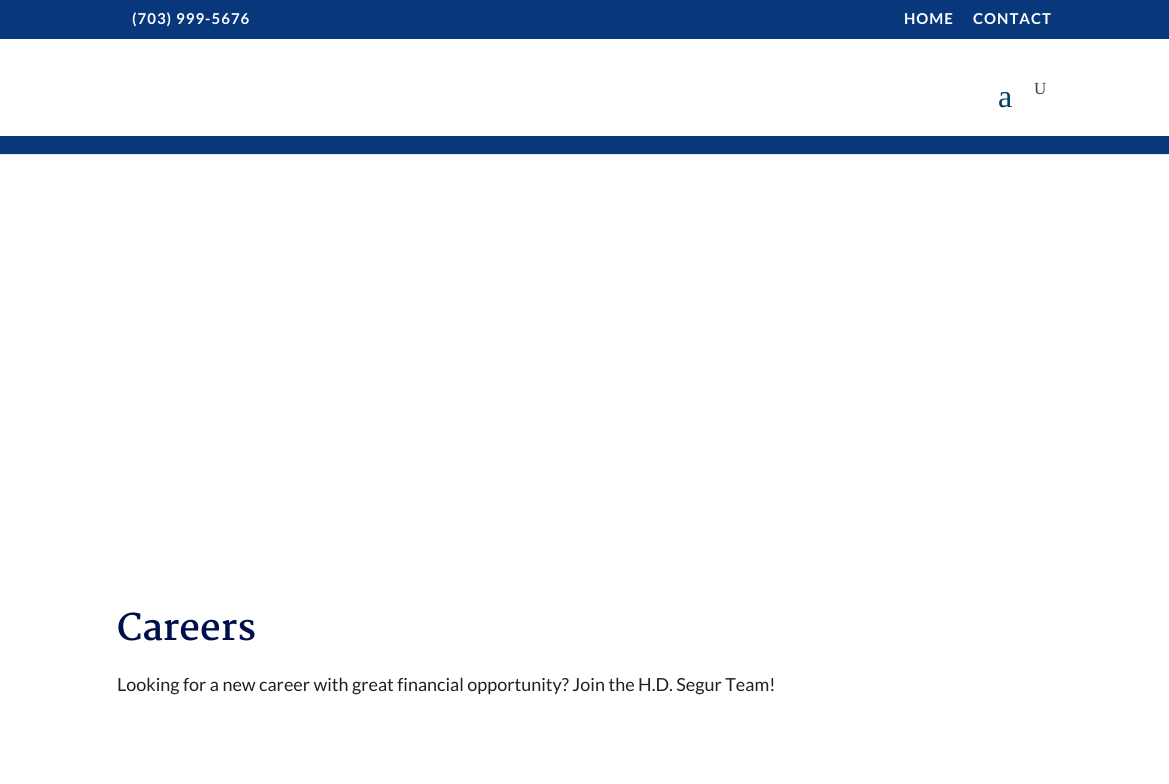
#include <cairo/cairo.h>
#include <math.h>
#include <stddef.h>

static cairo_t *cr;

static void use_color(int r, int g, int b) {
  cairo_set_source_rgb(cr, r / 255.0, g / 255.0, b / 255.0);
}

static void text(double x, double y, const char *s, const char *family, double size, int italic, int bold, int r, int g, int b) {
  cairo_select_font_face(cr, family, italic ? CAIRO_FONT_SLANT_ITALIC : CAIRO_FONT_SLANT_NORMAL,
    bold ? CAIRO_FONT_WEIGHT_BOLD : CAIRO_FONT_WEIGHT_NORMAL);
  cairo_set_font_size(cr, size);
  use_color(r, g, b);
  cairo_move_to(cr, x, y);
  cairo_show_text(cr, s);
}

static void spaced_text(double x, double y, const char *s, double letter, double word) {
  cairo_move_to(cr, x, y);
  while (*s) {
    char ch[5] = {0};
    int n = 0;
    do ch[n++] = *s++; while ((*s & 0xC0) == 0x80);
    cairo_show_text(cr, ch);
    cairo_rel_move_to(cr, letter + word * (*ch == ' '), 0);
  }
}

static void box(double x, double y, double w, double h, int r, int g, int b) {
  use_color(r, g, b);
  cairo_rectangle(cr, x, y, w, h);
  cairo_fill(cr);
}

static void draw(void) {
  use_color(255, 255, 255);
  cairo_paint(cr);
  box(0, 0, 1169, 39, 8, 55, 123);
  box(0, 154, 1169, 1, 230, 230, 230);
  box(0, 136, 1169, 18, 8, 55, 123);
  cairo_select_font_face(cr, "Lato", CAIRO_FONT_SLANT_NORMAL, CAIRO_FONT_WEIGHT_BOLD);
  cairo_set_font_size(cr, 15);
  use_color(255, 255, 255);
  spaced_text(132, 24, "(703) 999-5676", 1, 0);
  spaced_text(904, 24, "HOME", 1, 0);
  spaced_text(973, 24, "CONTACT", 1, 0);
  text(1034, 94, "U", "Liberation Serif", 17, 0, 0, 66, 66, 66);
  text(998, 107, "a", "Liberation Serif", 32, 0, 0, 1, 61, 103);
  text(117, 640, "Careers", "Martel", 36, 0, 1, 0, 15, 76);
  text(117, 691, "Looking for a new career with great financial opportunity? Join the H.D. Segur Team!", "Lato", 18, 0, 0, 35, 31, 32);
}

int main(void) {
  cairo_surface_t *surface = cairo_image_surface_create(CAIRO_FORMAT_RGB24, 1169, 784);
  cr = cairo_create(surface);
  cairo_font_options_t *options = cairo_font_options_create();
  cairo_font_options_set_hint_metrics(options, CAIRO_HINT_METRICS_OFF);
  cairo_font_options_set_hint_style(options, CAIRO_HINT_STYLE_NONE);
  cairo_set_font_options(cr, options);
  cairo_set_miter_limit(cr, 4);
  draw();
  cairo_surface_write_to_png(surface, "out.png");
  cairo_font_options_destroy(options);
  cairo_destroy(cr);
  cairo_surface_destroy(surface);
  return 0;
}
